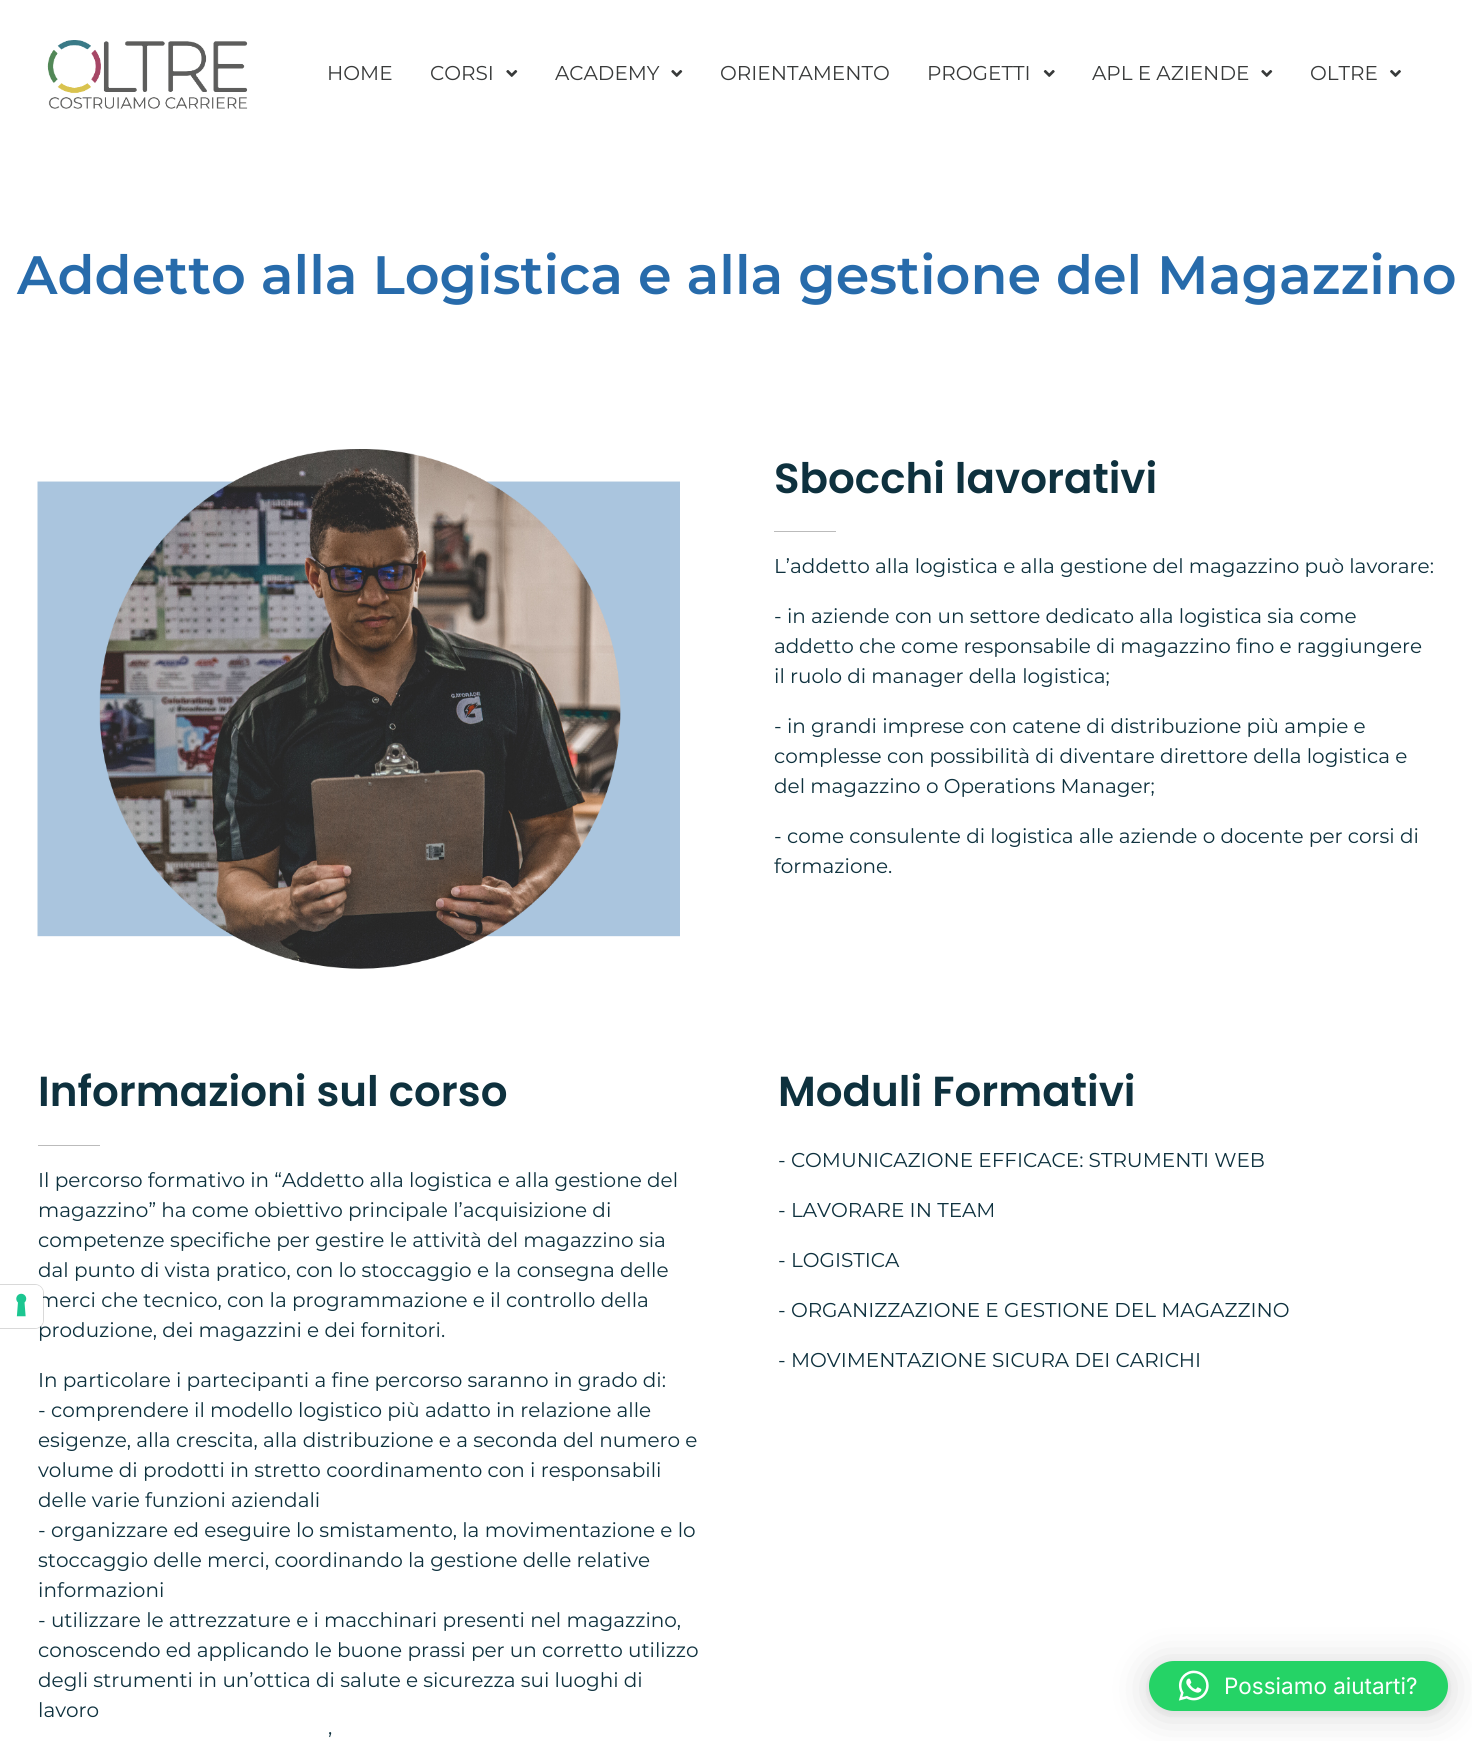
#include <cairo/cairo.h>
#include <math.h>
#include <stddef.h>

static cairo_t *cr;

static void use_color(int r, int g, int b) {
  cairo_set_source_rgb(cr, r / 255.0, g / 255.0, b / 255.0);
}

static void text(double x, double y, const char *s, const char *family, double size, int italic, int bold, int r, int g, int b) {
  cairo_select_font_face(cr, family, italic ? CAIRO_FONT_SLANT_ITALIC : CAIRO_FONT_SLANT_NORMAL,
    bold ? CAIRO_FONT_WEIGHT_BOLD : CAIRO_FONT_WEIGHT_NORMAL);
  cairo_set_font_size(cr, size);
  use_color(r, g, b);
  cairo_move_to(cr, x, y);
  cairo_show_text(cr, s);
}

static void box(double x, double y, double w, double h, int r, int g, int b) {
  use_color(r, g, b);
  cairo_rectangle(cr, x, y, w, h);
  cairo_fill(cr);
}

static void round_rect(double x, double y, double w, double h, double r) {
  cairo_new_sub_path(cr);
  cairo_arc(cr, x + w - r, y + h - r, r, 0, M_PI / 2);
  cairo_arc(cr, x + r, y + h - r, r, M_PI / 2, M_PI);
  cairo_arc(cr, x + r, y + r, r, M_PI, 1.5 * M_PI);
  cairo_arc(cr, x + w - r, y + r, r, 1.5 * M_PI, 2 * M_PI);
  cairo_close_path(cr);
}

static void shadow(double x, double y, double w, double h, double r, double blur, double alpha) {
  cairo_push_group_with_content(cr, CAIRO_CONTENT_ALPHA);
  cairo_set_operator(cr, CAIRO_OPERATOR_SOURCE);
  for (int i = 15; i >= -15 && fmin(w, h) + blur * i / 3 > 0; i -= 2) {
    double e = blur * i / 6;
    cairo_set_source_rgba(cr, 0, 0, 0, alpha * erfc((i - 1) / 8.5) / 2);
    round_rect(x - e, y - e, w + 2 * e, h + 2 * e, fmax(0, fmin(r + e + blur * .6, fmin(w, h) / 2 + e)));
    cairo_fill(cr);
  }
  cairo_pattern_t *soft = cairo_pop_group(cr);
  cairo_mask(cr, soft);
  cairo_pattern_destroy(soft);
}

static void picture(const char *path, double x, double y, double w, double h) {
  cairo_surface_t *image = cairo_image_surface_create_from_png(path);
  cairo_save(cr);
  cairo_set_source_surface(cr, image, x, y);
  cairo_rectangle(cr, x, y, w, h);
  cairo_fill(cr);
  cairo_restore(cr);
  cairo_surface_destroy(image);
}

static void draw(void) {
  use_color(255, 255, 255);
  cairo_paint(cr);
  picture("img_01.png", 47, 40, 201, 69);
  picture("img_02.png", 506, 70, 12, 7);
  picture("img_02.png", 671, 70, 12, 7);
  picture("img_03.png", 1043, 70, 12, 7);
  picture("img_02.png", 1261, 70, 12, 7);
  picture("img_04.png", 1390, 70, 11, 7);
  picture("img_05.png", 37, 449, 643, 520);
  box(774, 531, 62, 1, 187, 187, 187);
  box(38, 1145, 62, 1, 187, 187, 187);
  use_color(0, 0, 0);
  shadow(1149, 1664, 299, 50, 25, 20, 0.16);
  shadow(1149, 1663, 299, 50, 25, 4, 0.06);
  use_color(37, 211, 102);
  round_rect(1149, 1661, 299, 50, 25);
  cairo_fill(cr);
  picture("img_07.png", 1178, 1670, 31, 31);
  text(327, 80, "HOME", "Montserrat", 20, 0, 0, 56, 58, 58);
  text(430, 80, "CORSI", "Montserrat", 20, 0, 0, 56, 58, 58);
  text(555, 80, "ACADEMY", "Montserrat", 20, 0, 0, 56, 58, 58);
  text(720, 80, "ORIENTAMENTO", "Montserrat", 20, 0, 0, 56, 58, 58);
  text(927, 80, "PROGETTI", "Montserrat", 20, 0, 0, 56, 58, 58);
  text(1092, 80, "APL E AZIENDE", "Montserrat", 20, 0, 0, 56, 58, 58);
  text(1310, 80, "OLTRE", "Montserrat", 20, 0, 0, 56, 58, 58);
  text(17, 294, "Addetto alla Logistica e alla gestione del Magazzino", "Montserrat SemiBold", 54, 0, 0, 39, 107, 171);
  text(774, 493, "Sbocchi lavorativi", "Poppins SemiBold", 42, 0, 0, 14, 49, 62);
  text(774, 573, "L’addetto alla logistica e alla gestione del magazzino può lavorare:", "Montserrat", 20, 0, 0, 14, 49, 62);
  text(774, 623, "- in aziende con un settore dedicato alla logistica sia come", "Montserrat", 20, 0, 0, 14, 49, 62);
  text(774, 653, "addetto che come responsabile di magazzino fino e raggiungere", "Montserrat", 20, 0, 0, 14, 49, 62);
  text(774, 683, "il ruolo di manager della logistica;", "Montserrat", 20, 0, 0, 14, 49, 62);
  text(774, 733, "- in grandi imprese con catene di distribuzione più ampie e", "Montserrat", 20, 0, 0, 14, 49, 62);
  text(774, 763, "complesse con possibilità di diventare direttore della logistica e", "Montserrat", 20, 0, 0, 14, 49, 62);
  text(774, 793, "del magazzino o Operations Manager;", "Montserrat", 20, 0, 0, 14, 49, 62);
  text(774, 843, "- come consulente di logistica alle aziende o docente per corsi di", "Montserrat", 20, 0, 0, 14, 49, 62);
  text(774, 873, "formazione.", "Montserrat", 20, 0, 0, 14, 49, 62);
  text(38, 1106, "Informazioni sul corso", "Poppins SemiBold", 42, 0, 0, 14, 49, 62);
  text(38, 1187, "Il percorso formativo in “Addetto alla logistica e alla gestione del", "Montserrat", 20, 0, 0, 14, 49, 62);
  text(38, 1217, "magazzino” ha come obiettivo principale l’acquisizione di", "Montserrat", 20, 0, 0, 14, 49, 62);
  text(38, 1247, "competenze specifiche per gestire le attività del magazzino sia", "Montserrat", 20, 0, 0, 14, 49, 62);
  text(38, 1277, "dal punto di vista pratico, con lo stoccaggio e la consegna delle", "Montserrat", 20, 0, 0, 14, 49, 62);
  text(38, 1307, "merci che tecnico, con la programmazione e il controllo della", "Montserrat", 20, 0, 0, 14, 49, 62);
  text(38, 1337, "produzione, dei magazzini e dei fornitori.", "Montserrat", 20, 0, 0, 14, 49, 62);
  text(38, 1387, "In particolare i partecipanti a fine percorso saranno in grado di:", "Montserrat", 20, 0, 0, 14, 49, 62);
  text(38, 1417, "- comprendere il modello logistico più adatto in relazione alle", "Montserrat", 20, 0, 0, 14, 49, 62);
  text(38, 1447, "esigenze, alla crescita, alla distribuzione e a seconda del numero e", "Montserrat", 20, 0, 0, 14, 49, 62);
  text(38, 1477, "volume di prodotti in stretto coordinamento con i responsabili", "Montserrat", 20, 0, 0, 14, 49, 62);
  text(38, 1507, "delle varie funzioni aziendali", "Montserrat", 20, 0, 0, 14, 49, 62);
  text(38, 1537, "- organizzare ed eseguire lo smistamento, la movimentazione e lo", "Montserrat", 20, 0, 0, 14, 49, 62);
  text(38, 1567, "stoccaggio delle merci, coordinando la gestione delle relative", "Montserrat", 20, 0, 0, 14, 49, 62);
  text(38, 1597, "informazioni", "Montserrat", 20, 0, 0, 14, 49, 62);
  text(38, 1627, "- utilizzare le attrezzature e i macchinari presenti nel magazzino,", "Montserrat", 20, 0, 0, 14, 49, 62);
  text(38, 1657, "conoscendo ed applicando le buone prassi per un corretto utilizzo", "Montserrat", 20, 0, 0, 14, 49, 62);
  text(38, 1687, "degli strumenti in un’ottica di salute e sicurezza sui luoghi di", "Montserrat", 20, 0, 0, 14, 49, 62);
  text(38, 1717, "lavoro", "Montserrat", 20, 0, 0, 14, 49, 62);
  text(328, 1747, "’", "Montserrat", 20, 0, 0, 14, 49, 62);
  text(778, 1106, "Moduli Formativi", "Poppins SemiBold", 42, 0, 0, 14, 49, 62);
  text(778, 1167, "- COMUNICAZIONE EFFICACE: STRUMENTI WEB", "Montserrat", 20, 0, 0, 14, 49, 62);
  text(778, 1217, "- LAVORARE IN TEAM", "Montserrat", 20, 0, 0, 14, 49, 62);
  text(778, 1267, "- LOGISTICA", "Montserrat", 20, 0, 0, 14, 49, 62);
  text(778, 1317, "- ORGANIZZAZIONE E GESTIONE DEL MAGAZZINO", "Montserrat", 20, 0, 0, 14, 49, 62);
  text(778, 1367, "- MOVIMENTAZIONE SICURA DEI CARICHI", "Montserrat", 20, 0, 0, 14, 49, 62);
  cairo_new_path(cr);
  cairo_move_to(cr, -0.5, 1284.5);
  cairo_line_to(cr, 35, 1284.5);
  cairo_curve_to(cr, 39.5, 1284.5, 43.5, 1288.5, 43.5, 1293);
  cairo_line_to(cr, 43.5, 1320);
  cairo_curve_to(cr, 43.5, 1324.5, 39.5, 1328.5, 35, 1328.5);
  cairo_line_to(cr, -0.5, 1328.5);
  cairo_close_path(cr);
  cairo_set_source_rgba(cr, 0, 0, 0, 0.15);
  cairo_set_line_width(cr, 1);
  cairo_stroke(cr);
  use_color(255, 255, 255);
  cairo_new_path(cr);
  cairo_move_to(cr, 0, 1285);
  cairo_line_to(cr, 35, 1285);
  cairo_curve_to(cr, 39.5, 1285, 43, 1288.5, 43, 1293);
  cairo_line_to(cr, 43, 1320);
  cairo_curve_to(cr, 43, 1324.5, 39.5, 1328, 35, 1328);
  cairo_line_to(cr, 0, 1328);
  cairo_close_path(cr);
  cairo_fill(cr);
  picture("img_06.png", 16, 1293, 11, 24);
  text(1224, 1694, "Possiamo aiutarti?", "Inter", 22.5, 0, 0, 255, 255, 255);
}

int main(void) {
  cairo_surface_t *surface = cairo_image_surface_create(CAIRO_FORMAT_RGB24, 1472, 1741);
  cr = cairo_create(surface);
  cairo_font_options_t *options = cairo_font_options_create();
  cairo_font_options_set_hint_metrics(options, CAIRO_HINT_METRICS_OFF);
  cairo_font_options_set_hint_style(options, CAIRO_HINT_STYLE_NONE);
  cairo_set_font_options(cr, options);
  cairo_set_miter_limit(cr, 4);
  draw();
  cairo_surface_write_to_png(surface, "out.png");
  cairo_font_options_destroy(options);
  cairo_destroy(cr);
  cairo_surface_destroy(surface);
  return 0;
}
